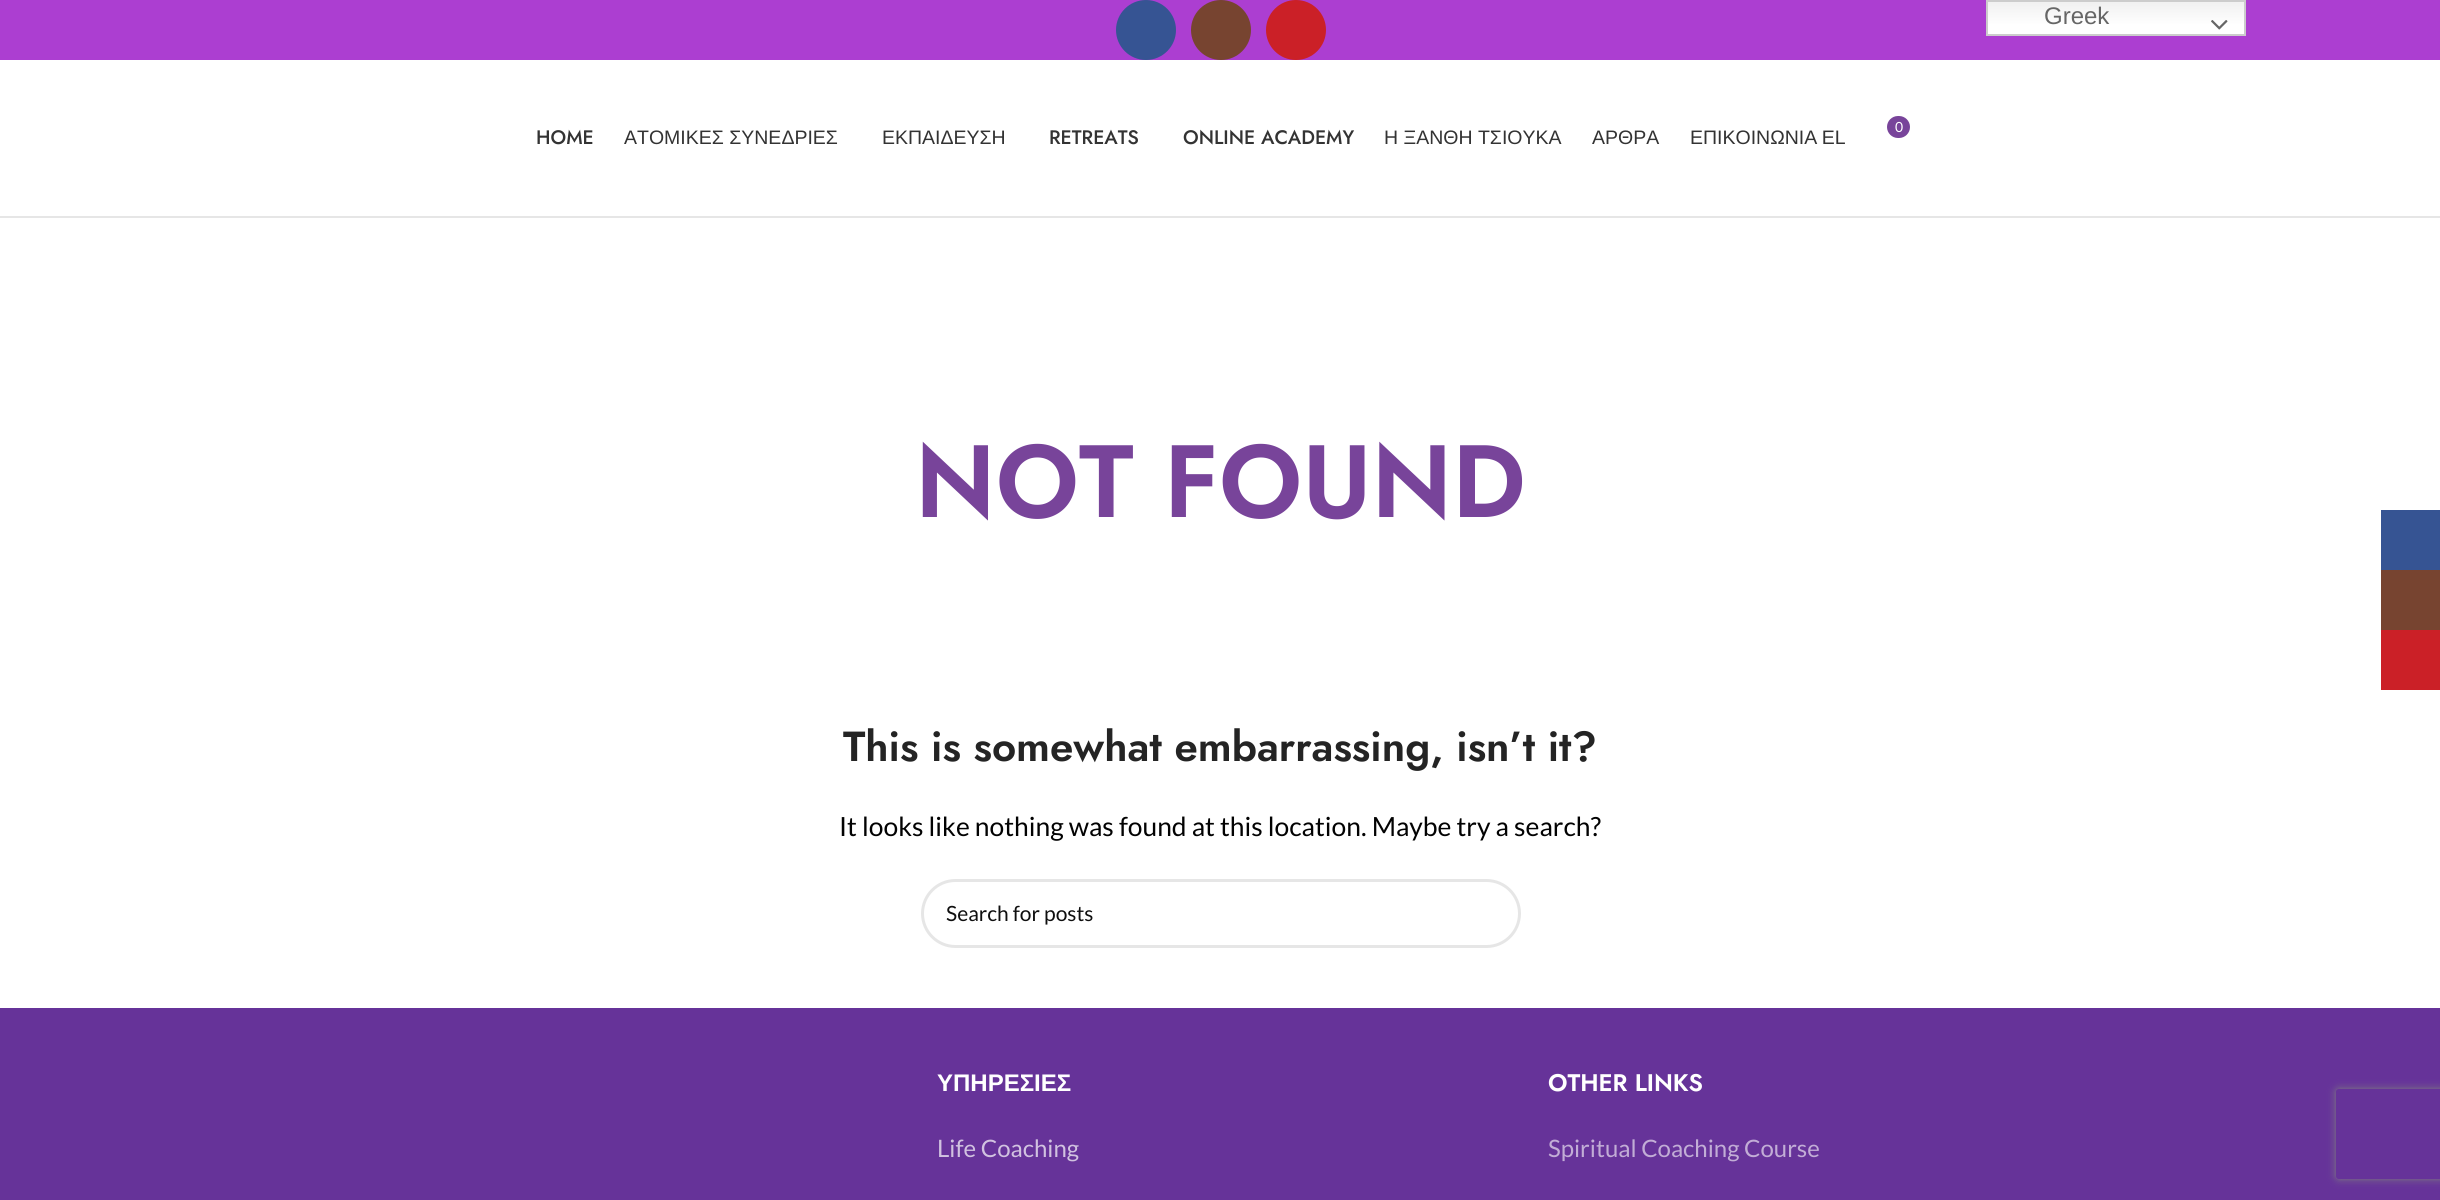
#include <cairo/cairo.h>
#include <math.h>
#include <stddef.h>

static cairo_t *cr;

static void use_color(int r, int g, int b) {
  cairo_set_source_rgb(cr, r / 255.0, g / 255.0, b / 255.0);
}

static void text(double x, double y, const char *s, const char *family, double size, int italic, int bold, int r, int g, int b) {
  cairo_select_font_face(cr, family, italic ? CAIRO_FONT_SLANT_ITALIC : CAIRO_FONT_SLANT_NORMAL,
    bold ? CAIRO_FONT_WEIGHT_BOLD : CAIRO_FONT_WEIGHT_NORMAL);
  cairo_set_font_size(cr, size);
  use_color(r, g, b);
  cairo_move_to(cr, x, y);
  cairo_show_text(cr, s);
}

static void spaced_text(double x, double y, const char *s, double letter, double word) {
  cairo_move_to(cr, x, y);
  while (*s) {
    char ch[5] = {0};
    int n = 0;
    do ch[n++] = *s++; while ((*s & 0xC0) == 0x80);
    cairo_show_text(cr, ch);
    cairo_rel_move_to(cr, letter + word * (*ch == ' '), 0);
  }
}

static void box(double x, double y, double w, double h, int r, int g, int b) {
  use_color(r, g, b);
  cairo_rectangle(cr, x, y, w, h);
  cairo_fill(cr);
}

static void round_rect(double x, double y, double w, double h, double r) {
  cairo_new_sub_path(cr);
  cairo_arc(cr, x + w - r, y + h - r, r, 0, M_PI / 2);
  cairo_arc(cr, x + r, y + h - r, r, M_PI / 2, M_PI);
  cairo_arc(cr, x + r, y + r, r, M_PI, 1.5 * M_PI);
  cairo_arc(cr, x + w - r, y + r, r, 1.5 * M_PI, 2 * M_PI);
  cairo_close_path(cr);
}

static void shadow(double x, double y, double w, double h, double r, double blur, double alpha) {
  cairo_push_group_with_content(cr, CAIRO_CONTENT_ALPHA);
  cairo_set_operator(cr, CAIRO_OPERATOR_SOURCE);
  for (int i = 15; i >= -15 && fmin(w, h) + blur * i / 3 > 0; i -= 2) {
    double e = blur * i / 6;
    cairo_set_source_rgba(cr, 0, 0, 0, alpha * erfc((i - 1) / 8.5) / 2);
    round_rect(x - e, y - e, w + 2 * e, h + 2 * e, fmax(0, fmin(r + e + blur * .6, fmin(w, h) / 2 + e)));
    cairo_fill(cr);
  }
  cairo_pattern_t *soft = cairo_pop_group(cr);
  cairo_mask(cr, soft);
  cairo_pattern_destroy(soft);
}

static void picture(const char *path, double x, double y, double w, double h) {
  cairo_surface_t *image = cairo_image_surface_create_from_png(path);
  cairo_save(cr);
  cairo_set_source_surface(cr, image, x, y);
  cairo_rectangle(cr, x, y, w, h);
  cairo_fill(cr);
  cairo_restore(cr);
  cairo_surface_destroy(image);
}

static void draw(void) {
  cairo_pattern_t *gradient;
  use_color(255, 255, 255);
  cairo_paint(cr);
  box(0, 0, 2440, 60, 172, 62, 209);
  gradient = cairo_pattern_create_linear(2116, 0, 2116, 36);
  cairo_pattern_add_color_stop_rgba(gradient, 0, 0.937, 0.937, 0.937, 1);
  cairo_pattern_add_color_stop_rgba(gradient, 0.7, 1, 1, 1, 1);
  cairo_set_source(cr, gradient);
  cairo_pattern_destroy(gradient);
  cairo_rectangle(cr, 1988, 2, 256, 32);
  cairo_fill(cr);
  cairo_rectangle(cr, 1987, 1, 258, 34);
  use_color(204, 204, 204);
  cairo_stroke(cr);
  picture("img_01.png", 2211, 20, 17, 10);
  use_color(54, 84, 147);
  cairo_arc(cr, 1146, 30, 30, 0, 2 * M_PI);
  cairo_fill(cr);
  use_color(119, 68, 48);
  cairo_arc(cr, 1221, 30, 30, 0, 2 * M_PI);
  cairo_fill(cr);
  use_color(203, 32, 39);
  cairo_arc(cr, 1296, 30, 30, 0, 2 * M_PI);
  cairo_fill(cr);
  box(0, 216, 2440, 2, 230, 230, 230);
  use_color(120, 68, 154);
  round_rect(1887, 116, 23, 22, 11);
  cairo_fill(cr);
  round_rect(922.5, 880.5, 597, 66, 33);
  use_color(230, 230, 230);
  cairo_set_line_width(cr, 3);
  cairo_stroke(cr);
  box(0, 1008, 2440, 192, 102, 51, 153);
  box(2381, 510, 59, 60, 54, 84, 147);
  box(2381, 570, 59, 60, 119, 68, 48);
  box(2381, 630, 59, 60, 203, 32, 39);
  cairo_save(cr);
  cairo_set_fill_rule(cr, CAIRO_FILL_RULE_EVEN_ODD);
  cairo_new_path(cr);
  cairo_move_to(cr, 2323, 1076);
  cairo_line_to(cr, 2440, 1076);
  cairo_line_to(cr, 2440, 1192);
  cairo_line_to(cr, 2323, 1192);
  cairo_close_path(cr);
  cairo_move_to(cr, 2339, 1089);
  cairo_line_to(cr, 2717, 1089);
  cairo_curve_to(cr, 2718.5, 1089, 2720, 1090.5, 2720, 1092);
  cairo_line_to(cr, 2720, 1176);
  cairo_curve_to(cr, 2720, 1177.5, 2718.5, 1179, 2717, 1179);
  cairo_line_to(cr, 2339, 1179);
  cairo_curve_to(cr, 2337.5, 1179, 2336, 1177.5, 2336, 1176);
  cairo_line_to(cr, 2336, 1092);
  cairo_curve_to(cr, 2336, 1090.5, 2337.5, 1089, 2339, 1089);
  cairo_close_path(cr);
  cairo_clip(cr);
  use_color(128, 128, 128);
  shadow(2336, 1089, 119, 90, 3, 4, 1);
  cairo_restore(cr);
  text(2044, 24, "Greek", "Liberation Sans", 24, 0, 0, 102, 102, 102);
  text(1895, 132, "0", "Lato", 14, 0, 0, 255, 255, 255);
  text(536, 144, "HOME", "Jost Medium", 19.5, 0, 0, 51, 51, 51);
  text(624, 144, "ΑΤΟΜΙΚΕΣ ΣΥΝΕΔΡΙΕΣ", "Liberation Sans", 19.5, 0, 0, 51, 51, 51);
  text(882, 144, "ΕΚΠΑΙΔΕΥΣΗ", "Liberation Sans", 19.5, 0, 0, 51, 51, 51);
  text(1049, 144, "RETREATS", "Jost Medium", 19.5, 0, 0, 51, 51, 51);
  text(1183, 144, "ONLINE ACADEMY", "Jost Medium", 19.5, 0, 0, 51, 51, 51);
  text(1384, 144, "Η ΞΑΝΘΗ ΤΣΙΟΥΚΑ", "Liberation Sans", 19.5, 0, 0, 51, 51, 51);
  text(1592, 144, "ΑΡΘΡΑ", "Liberation Sans", 19.5, 0, 0, 51, 51, 51);
  spaced_text(1690, 144, "ΕΠΙΚΟΙΝΩΝΙΑ EL", 0, -1);
  text(915, 517, "NOT FOUND", "Jost SemiBold", 102.5, 0, 0, 120, 68, 154);
  text(843, 761, "This is somewhat embarrassing, isn’t it?", "Jost SemiBold", 42, 0, 0, 36, 36, 36);
  text(839, 836, "It looks like nothing was found at this location. Maybe try a search?", "Lato", 26.4, 0, 0, 2, 2, 2);
  text(946, 921, "Search for posts", "Lato", 21, 0, 0, 15, 15, 15);
  text(937, 1091, "ΥΠΗΡΕΣΙΕΣ", "Liberation Sans", 24, 0, 1, 255, 255, 255);
  text(937, 1157, "Life Coaching", "Lato", 24, 0, 0, 209, 194, 224);
  text(1548, 1091, "OTHER LINKS", "Jost SemiBold", 24, 0, 0, 255, 255, 255);
  text(1548, 1157, "Spiritual Coaching Course", "Lato", 24, 0, 0, 194, 173, 214);
}

int main(void) {
  cairo_surface_t *surface = cairo_image_surface_create(CAIRO_FORMAT_RGB24, 2440, 1200);
  cr = cairo_create(surface);
  cairo_font_options_t *options = cairo_font_options_create();
  cairo_font_options_set_hint_metrics(options, CAIRO_HINT_METRICS_OFF);
  cairo_font_options_set_hint_style(options, CAIRO_HINT_STYLE_NONE);
  cairo_set_font_options(cr, options);
  cairo_set_miter_limit(cr, 4);
  draw();
  cairo_surface_write_to_png(surface, "out.png");
  cairo_font_options_destroy(options);
  cairo_destroy(cr);
  cairo_surface_destroy(surface);
  return 0;
}
